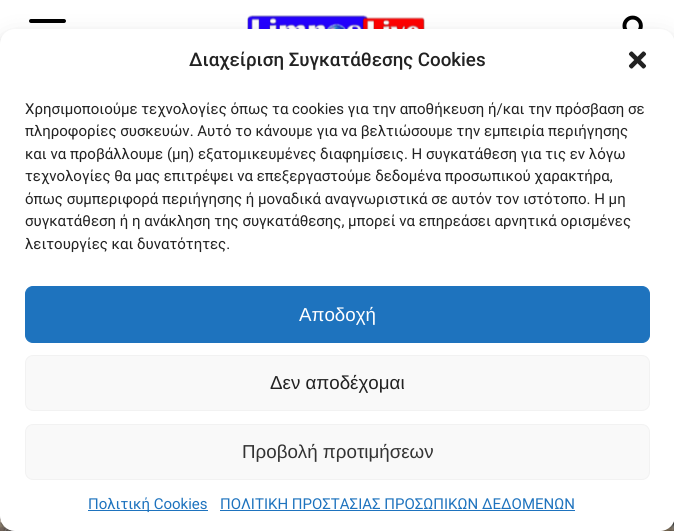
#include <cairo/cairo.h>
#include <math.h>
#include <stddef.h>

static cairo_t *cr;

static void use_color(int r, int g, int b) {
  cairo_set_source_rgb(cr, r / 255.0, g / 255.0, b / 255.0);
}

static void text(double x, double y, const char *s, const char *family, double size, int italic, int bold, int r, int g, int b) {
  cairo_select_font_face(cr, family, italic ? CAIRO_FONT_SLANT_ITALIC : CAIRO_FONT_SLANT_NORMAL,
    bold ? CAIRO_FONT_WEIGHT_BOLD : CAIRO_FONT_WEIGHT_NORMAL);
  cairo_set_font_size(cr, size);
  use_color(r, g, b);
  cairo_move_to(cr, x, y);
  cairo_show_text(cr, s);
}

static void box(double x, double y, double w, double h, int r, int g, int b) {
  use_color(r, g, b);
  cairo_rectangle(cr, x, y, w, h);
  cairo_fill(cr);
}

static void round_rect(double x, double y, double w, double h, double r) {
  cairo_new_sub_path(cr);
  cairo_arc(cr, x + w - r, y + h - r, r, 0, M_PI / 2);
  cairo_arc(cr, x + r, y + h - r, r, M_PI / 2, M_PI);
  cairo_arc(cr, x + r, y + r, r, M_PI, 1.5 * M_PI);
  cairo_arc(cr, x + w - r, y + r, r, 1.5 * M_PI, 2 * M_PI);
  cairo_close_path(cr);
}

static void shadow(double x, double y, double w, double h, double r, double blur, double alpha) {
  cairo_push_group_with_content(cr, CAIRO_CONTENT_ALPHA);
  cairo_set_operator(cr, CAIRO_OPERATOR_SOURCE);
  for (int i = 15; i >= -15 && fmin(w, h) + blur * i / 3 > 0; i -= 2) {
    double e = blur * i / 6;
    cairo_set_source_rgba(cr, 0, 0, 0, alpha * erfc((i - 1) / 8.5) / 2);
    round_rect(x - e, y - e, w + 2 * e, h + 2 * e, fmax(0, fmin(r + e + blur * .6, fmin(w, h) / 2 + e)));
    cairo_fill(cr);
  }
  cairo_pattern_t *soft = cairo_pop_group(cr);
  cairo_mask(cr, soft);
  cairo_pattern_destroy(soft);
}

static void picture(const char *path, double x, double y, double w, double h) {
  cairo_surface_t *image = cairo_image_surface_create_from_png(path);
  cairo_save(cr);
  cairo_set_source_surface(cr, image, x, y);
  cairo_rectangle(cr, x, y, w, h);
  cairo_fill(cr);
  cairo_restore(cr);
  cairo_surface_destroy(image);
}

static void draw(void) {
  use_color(255, 255, 255);
  cairo_paint(cr);
  use_color(0, 0, 0);
  round_rect(29, 19, 37, 4, 2);
  cairo_fill(cr);
  picture("img_01.png", 247, 15, 178, 14);
  picture("img_02.png", 622, 15, 21, 14);
  picture("img_03.png", 0, 516, 674, 15);
  use_color(0, 0, 0);
  shadow(0, 36, 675, 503, 15, 4, 0.23);
  shadow(0, 41, 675, 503, 15, 12.5, 0.19);
  use_color(255, 255, 255);
  round_rect(0, 29, 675, 502, 15);
  cairo_fill(cr);
  picture("img_04.png", 628, 51, 19, 18);
  use_color(30, 115, 190);
  round_rect(25.5, 286.5, 624, 56, 7.5);
  cairo_fill_preserve(cr);
  cairo_set_line_width(cr, 1);
  cairo_stroke(cr);
  use_color(249, 249, 249);
  round_rect(25.5, 355.5, 624, 55, 7.5);
  cairo_fill_preserve(cr);
  use_color(242, 242, 242);
  cairo_stroke(cr);
  use_color(249, 249, 249);
  round_rect(25.5, 424.5, 624, 55, 7.5);
  cairo_fill_preserve(cr);
  use_color(242, 242, 242);
  cairo_stroke(cr);
  box(88, 510, 120, 1, 30, 115, 190);
  box(220, 510, 355, 1, 30, 115, 190);
  text(189, 66, "Διαχείριση Συγκατάθεσης Cookies", "Roboto Medium", 18.75, 0, 0, 34, 34, 34);
  text(25, 114, "Χρησιμοποιούμε τεχνολογίες όπως τα cookies για την αποθήκευση ή/και την πρόσβαση σε", "Roboto", 15, 0, 0, 34, 34, 34);
  text(25, 136, "πληροφορίες συσκευών. Αυτό το κάνουμε για να βελτιώσουμε την εμπειρία περιήγησης", "Roboto", 15, 0, 0, 34, 34, 34);
  text(25, 159, "και να προβάλλουμε (μη) εξατομικευμένες διαφημίσεις. Η συγκατάθεση για τις εν λόγω", "Roboto", 15, 0, 0, 34, 34, 34);
  text(25, 181, "τεχνολογίες θα μας επιτρέψει να επεξεργαστούμε δεδομένα προσωπικού χαρακτήρα,", "Roboto", 15, 0, 0, 34, 34, 34);
  text(25, 204, "όπως συμπεριφορά περιήγησης ή μοναδικά αναγνωριστικά σε αυτόν τον ιστότοπο. Η μη", "Roboto", 15, 0, 0, 34, 34, 34);
  text(25, 226, "συγκατάθεση ή η ανάκληση της συγκατάθεσης, μπορεί να επηρεάσει αρνητικά ορισμένες", "Roboto", 15, 0, 0, 34, 34, 34);
  text(25, 249, "λειτουργίες και δυνατότητες.", "Roboto", 15, 0, 0, 34, 34, 34);
  text(299, 321, "Αποδοχή", "Liberation Sans", 18.75, 0, 0, 255, 255, 255);
  text(270, 389, "Δεν αποδέχομαι", "Liberation Sans", 18.75, 0, 0, 34, 34, 34);
  text(242, 458, "Προβολή προτιμήσεων", "Liberation Sans", 18.75, 0, 0, 51, 51, 51);
  text(88, 509, "Πολιτική Cookies", "Roboto", 15, 0, 0, 30, 115, 190);
  text(220, 509, "ΠΟΛΙΤΙΚΗ ΠΡΟΣΤΑΣΙΑΣ ΠΡΟΣΩΠΙΚΩΝ ΔΕΔΟΜΕΝΩΝ", "Roboto", 15, 0, 0, 30, 115, 190);
}

int main(void) {
  cairo_surface_t *surface = cairo_image_surface_create(CAIRO_FORMAT_RGB24, 674, 531);
  cr = cairo_create(surface);
  cairo_font_options_t *options = cairo_font_options_create();
  cairo_font_options_set_hint_metrics(options, CAIRO_HINT_METRICS_OFF);
  cairo_font_options_set_hint_style(options, CAIRO_HINT_STYLE_NONE);
  cairo_set_font_options(cr, options);
  cairo_set_miter_limit(cr, 4);
  draw();
  cairo_surface_write_to_png(surface, "out.png");
  cairo_font_options_destroy(options);
  cairo_destroy(cr);
  cairo_surface_destroy(surface);
  return 0;
}
